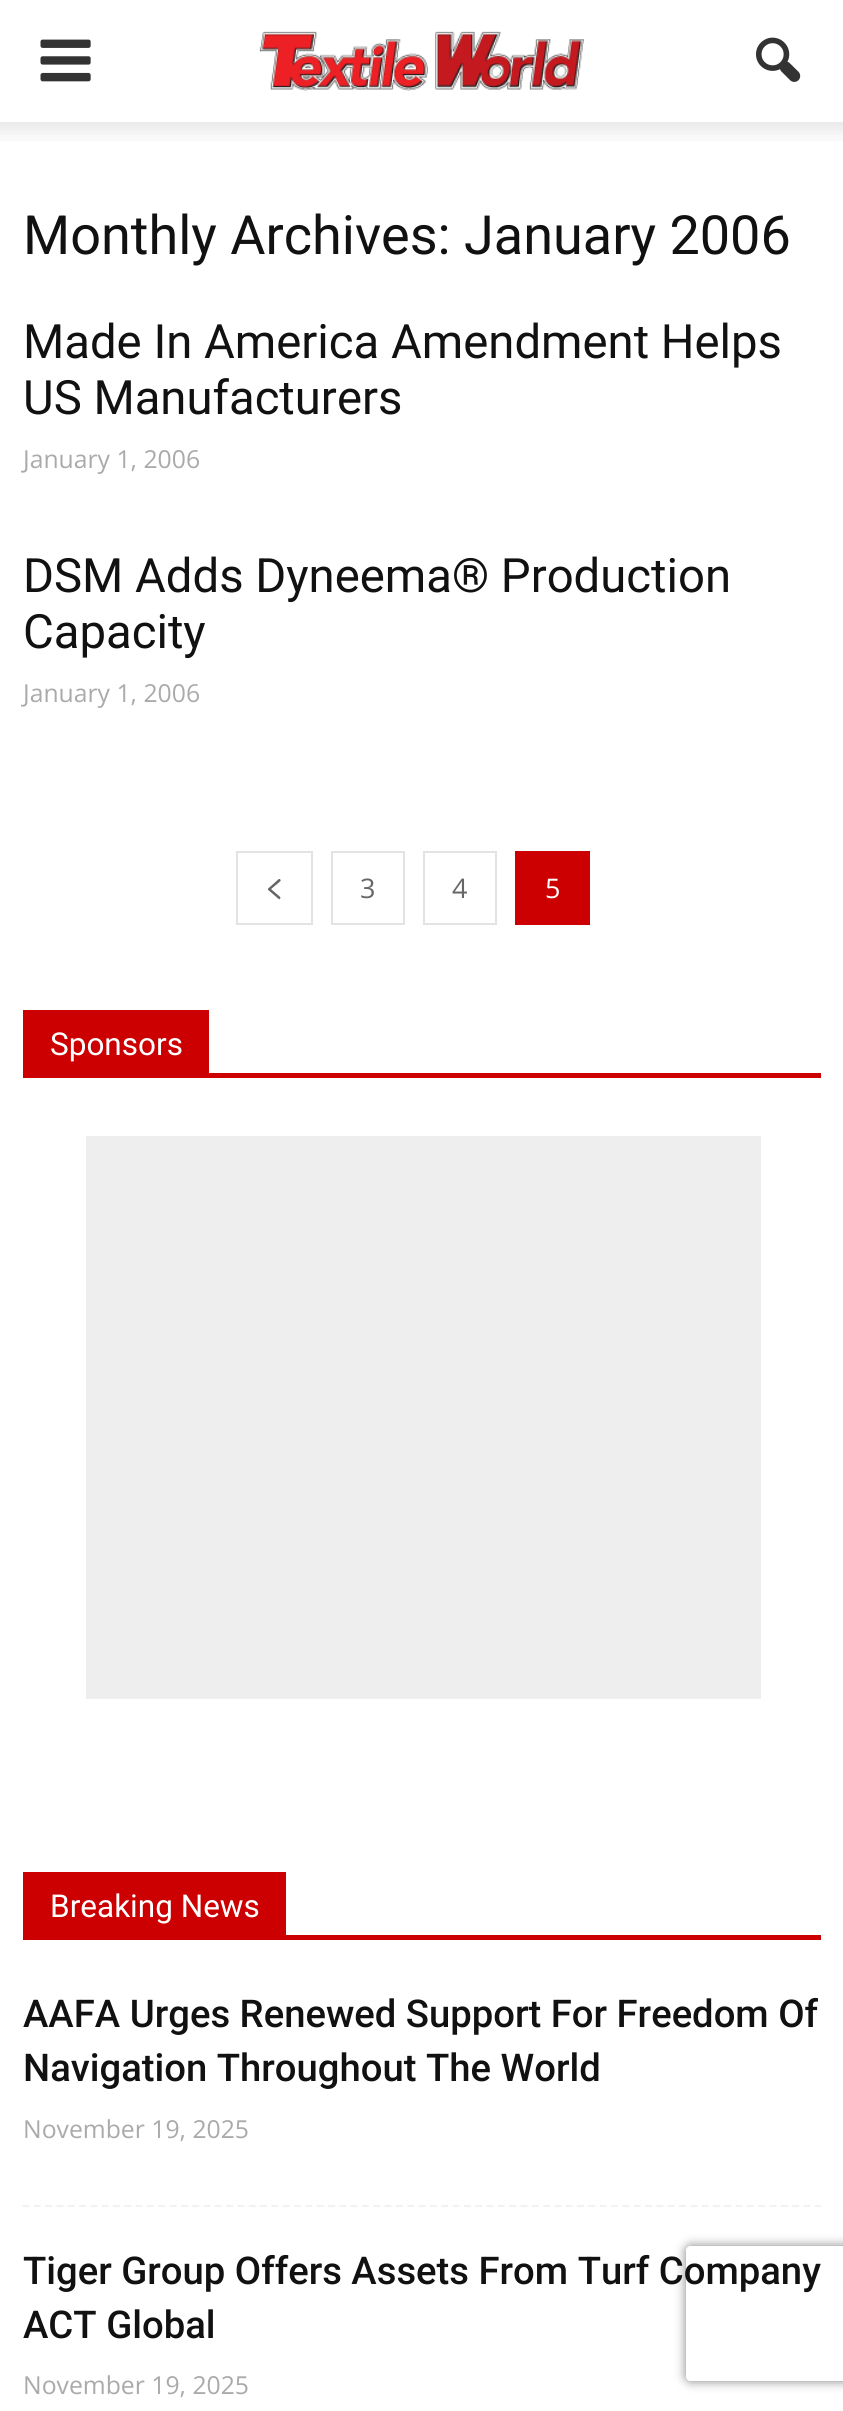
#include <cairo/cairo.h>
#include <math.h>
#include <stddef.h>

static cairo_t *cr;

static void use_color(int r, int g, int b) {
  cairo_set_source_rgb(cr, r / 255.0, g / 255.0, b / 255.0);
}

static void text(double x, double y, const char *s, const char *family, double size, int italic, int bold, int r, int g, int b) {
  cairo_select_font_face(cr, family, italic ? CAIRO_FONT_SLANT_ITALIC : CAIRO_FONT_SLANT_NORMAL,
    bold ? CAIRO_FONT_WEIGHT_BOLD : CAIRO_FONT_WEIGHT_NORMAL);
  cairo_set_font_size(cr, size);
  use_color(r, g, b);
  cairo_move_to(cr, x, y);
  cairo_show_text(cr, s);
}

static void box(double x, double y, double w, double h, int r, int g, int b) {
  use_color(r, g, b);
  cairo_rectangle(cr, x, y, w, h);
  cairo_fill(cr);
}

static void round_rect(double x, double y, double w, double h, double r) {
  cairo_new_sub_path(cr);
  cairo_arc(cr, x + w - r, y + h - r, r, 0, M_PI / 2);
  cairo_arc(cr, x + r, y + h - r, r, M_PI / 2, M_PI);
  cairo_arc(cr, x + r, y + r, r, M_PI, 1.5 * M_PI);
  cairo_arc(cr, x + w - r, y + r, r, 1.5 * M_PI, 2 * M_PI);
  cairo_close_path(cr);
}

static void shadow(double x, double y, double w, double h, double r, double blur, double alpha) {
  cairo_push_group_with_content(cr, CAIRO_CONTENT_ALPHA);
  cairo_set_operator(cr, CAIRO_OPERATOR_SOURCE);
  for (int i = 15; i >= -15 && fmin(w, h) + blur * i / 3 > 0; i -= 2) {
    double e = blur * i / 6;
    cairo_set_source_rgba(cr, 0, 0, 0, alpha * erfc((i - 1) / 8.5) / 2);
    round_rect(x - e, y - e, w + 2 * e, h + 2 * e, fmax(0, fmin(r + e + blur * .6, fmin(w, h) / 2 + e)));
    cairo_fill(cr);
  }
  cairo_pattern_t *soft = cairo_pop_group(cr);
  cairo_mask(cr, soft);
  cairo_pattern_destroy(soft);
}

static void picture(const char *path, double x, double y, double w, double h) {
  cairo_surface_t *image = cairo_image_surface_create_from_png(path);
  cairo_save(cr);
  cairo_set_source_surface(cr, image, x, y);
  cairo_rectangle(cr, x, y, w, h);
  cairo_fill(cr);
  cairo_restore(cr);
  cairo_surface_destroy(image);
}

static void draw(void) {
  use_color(255, 255, 255);
  cairo_paint(cr);
  picture("img_01.png", 40, 39, 51, 43);
  picture("img_02.png", 259, 31, 325, 60);
  picture("img_03.png", 756, 37, 45, 45);
  picture("img_04.png", 0, 122, 843, 19);
  cairo_rectangle(cr, 237, 852, 75, 72);
  use_color(227, 227, 227);
  cairo_stroke(cr);
  picture("img_05.png", 267, 879, 14, 21);
  cairo_rectangle(cr, 332, 852, 72, 72);
  cairo_stroke(cr);
  cairo_rectangle(cr, 424, 852, 72, 72);
  cairo_stroke(cr);
  box(515, 851, 75, 74, 204, 0, 0);
  box(23, 1073, 798, 5, 204, 0, 0);
  box(23, 1010, 186, 63, 204, 0, 0);
  box(86, 1136, 675, 563, 238, 238, 238);
  box(23, 1935, 798, 5, 204, 0, 0);
  box(23, 1872, 263, 63, 204, 0, 0);
  cairo_new_path(cr);
  cairo_move_to(cr, 22.5, 2206);
  cairo_line_to(cr, 821, 2206);
  use_color(242, 242, 242);
  cairo_set_line_width(cr, 2.2);
  cairo_set_dash(cr, (double[]){6.75, 4.57}, 2, 0);
  cairo_stroke(cr);
  cairo_save(cr);
  cairo_set_fill_rule(cr, CAIRO_FILL_RULE_EVEN_ODD);
  cairo_new_path(cr);
  cairo_move_to(cr, 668, 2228);
  cairo_line_to(cr, 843, 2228);
  cairo_line_to(cr, 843, 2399);
  cairo_line_to(cr, 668, 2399);
  cairo_close_path(cr);
  cairo_move_to(cr, 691, 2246);
  cairo_line_to(cr, 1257, 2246);
  cairo_curve_to(cr, 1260, 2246, 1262, 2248, 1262, 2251);
  cairo_line_to(cr, 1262, 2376);
  cairo_curve_to(cr, 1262, 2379, 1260, 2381, 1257, 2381);
  cairo_line_to(cr, 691, 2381);
  cairo_curve_to(cr, 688, 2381, 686, 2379, 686, 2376);
  cairo_line_to(cr, 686, 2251);
  cairo_curve_to(cr, 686, 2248, 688, 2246, 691, 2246);
  cairo_close_path(cr);
  cairo_clip(cr);
  use_color(128, 128, 128);
  shadow(686, 2246, 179, 135, 5, 5.5, 1);
  cairo_restore(cr);
  text(23, 254, "Monthly Archives: January 2006", "Roboto", 54, 0, 0, 17, 17, 17);
  text(23, 358, "Made In America Amendment Helps", "Roboto", 47.25, 0, 0, 17, 17, 17);
  text(23, 414, "US Manufacturers", "Roboto", 47.25, 0, 0, 17, 17, 17);
  text(23, 468, "January 1, 2006", "Open Sans", 24.75, 0, 0, 170, 170, 170);
  text(23, 592, "DSM Adds Dyneema® Production", "Roboto", 47.25, 0, 0, 17, 17, 17);
  text(23, 648, "Capacity", "Roboto", 47.25, 0, 0, 17, 17, 17);
  text(23, 702, "January 1, 2006", "Open Sans", 24.75, 0, 0, 170, 170, 170);
  text(360, 898, "3", "Open Sans", 27, 0, 0, 102, 102, 102);
  text(452, 898, "4", "Open Sans", 27, 0, 0, 102, 102, 102);
  text(545, 898, "5", "Open Sans", 27, 0, 0, 255, 255, 255);
  text(50, 1055, "Sponsors", "Roboto", 31.5, 0, 0, 255, 255, 255);
  text(50, 1917, "Breaking News", "Roboto", 31.5, 0, 0, 255, 255, 255);
  text(23, 2027, "AAFA Urges Renewed Support For Freedom Of", "Roboto Medium", 38.25, 0, 0, 17, 17, 17);
  text(23, 2081, "Navigation Throughout The World", "Roboto Medium", 38.25, 0, 0, 17, 17, 17);
  text(23, 2138, "November 19, 2025", "Open Sans", 24.75, 0, 0, 170, 170, 170);
  text(23, 2284, "Tiger Group Offers Assets From Turf Company", "Roboto Medium", 38.25, 0, 0, 17, 17, 17);
  text(23, 2338, "ACT Global", "Roboto Medium", 38.25, 0, 0, 17, 17, 17);
  text(23, 2394, "November 19, 2025", "Open Sans", 24.75, 0, 0, 170, 170, 170);
}

int main(void) {
  cairo_surface_t *surface = cairo_image_surface_create(CAIRO_FORMAT_RGB24, 843, 2411);
  cr = cairo_create(surface);
  cairo_font_options_t *options = cairo_font_options_create();
  cairo_font_options_set_hint_metrics(options, CAIRO_HINT_METRICS_OFF);
  cairo_font_options_set_hint_style(options, CAIRO_HINT_STYLE_NONE);
  cairo_set_font_options(cr, options);
  cairo_set_miter_limit(cr, 4);
  draw();
  cairo_surface_write_to_png(surface, "out.png");
  cairo_font_options_destroy(options);
  cairo_destroy(cr);
  cairo_surface_destroy(surface);
  return 0;
}
